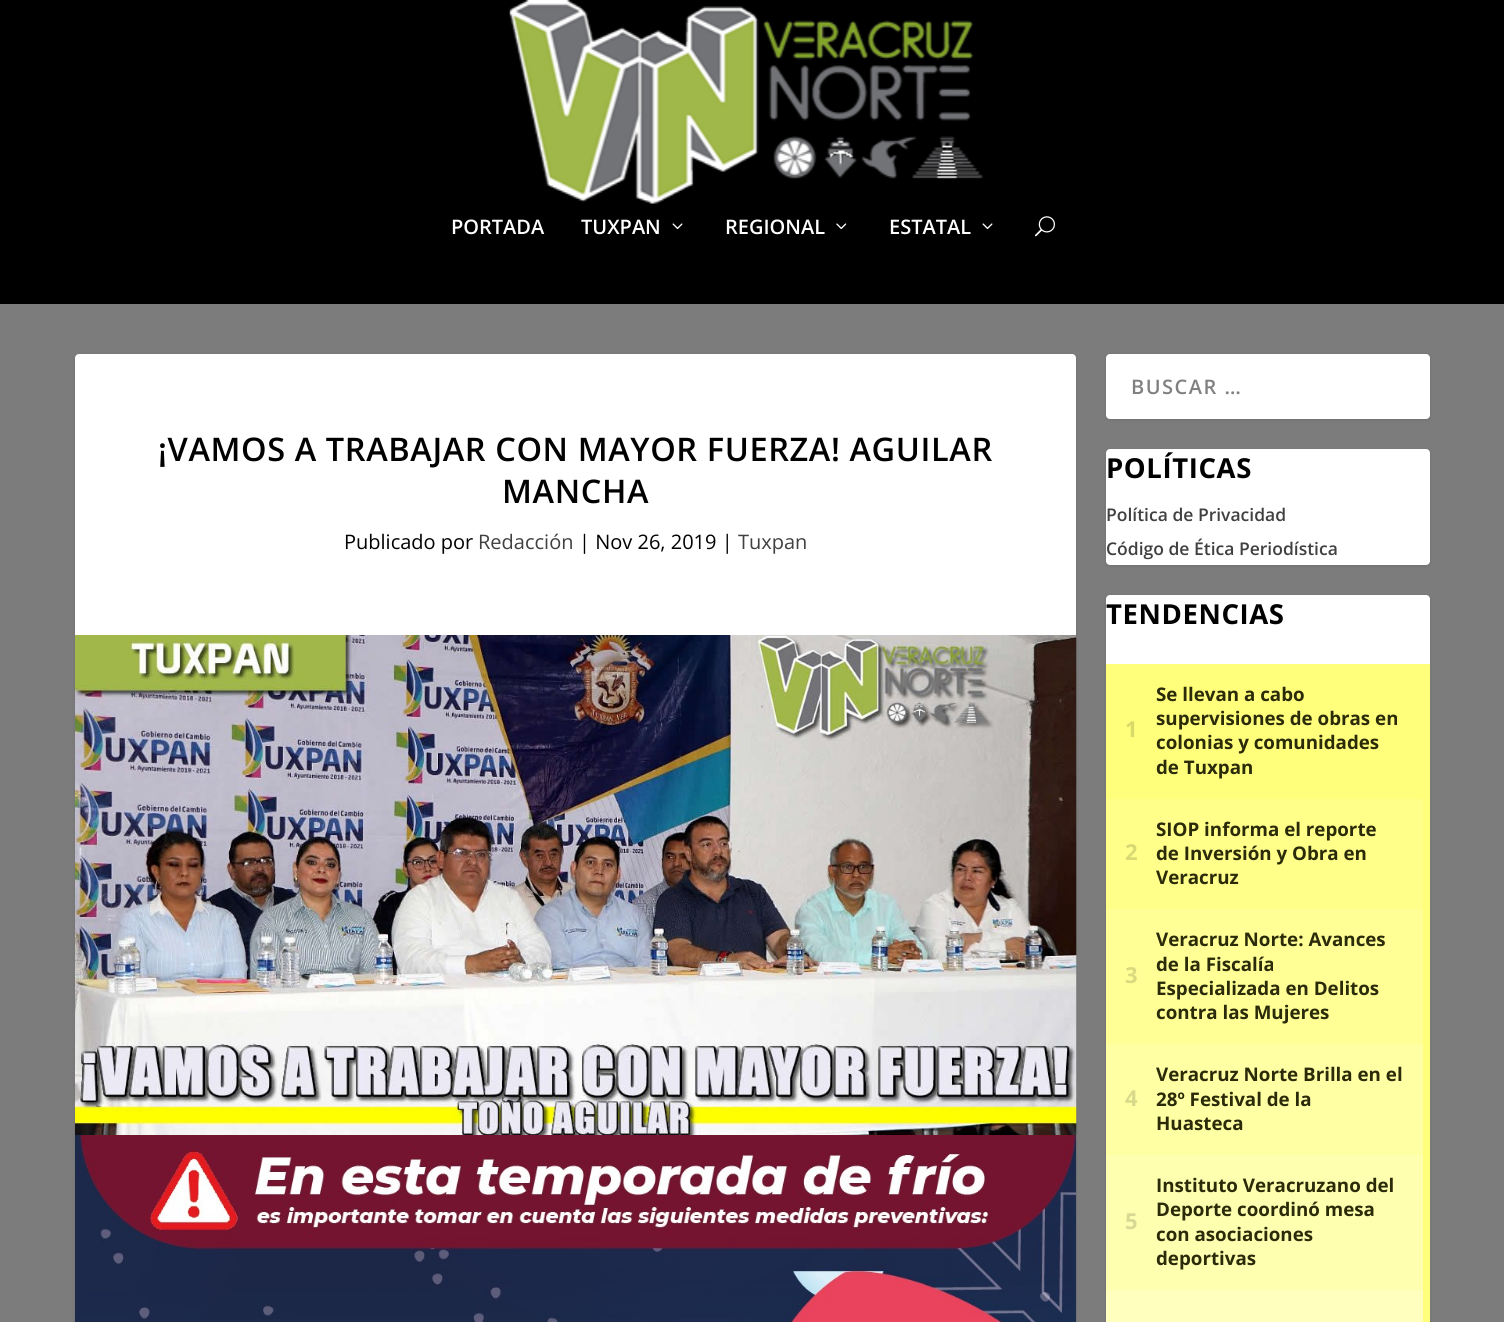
#include <cairo/cairo.h>
#include <math.h>
#include <stddef.h>

static cairo_t *cr;

static void use_color(int r, int g, int b) {
  cairo_set_source_rgb(cr, r / 255.0, g / 255.0, b / 255.0);
}

static void text(double x, double y, const char *s, const char *family, double size, int italic, int bold, int r, int g, int b) {
  cairo_select_font_face(cr, family, italic ? CAIRO_FONT_SLANT_ITALIC : CAIRO_FONT_SLANT_NORMAL,
    bold ? CAIRO_FONT_WEIGHT_BOLD : CAIRO_FONT_WEIGHT_NORMAL);
  cairo_set_font_size(cr, size);
  use_color(r, g, b);
  cairo_move_to(cr, x, y);
  cairo_show_text(cr, s);
}

static void spaced_text(double x, double y, const char *s, double letter, double word) {
  cairo_move_to(cr, x, y);
  while (*s) {
    char ch[5] = {0};
    int n = 0;
    do ch[n++] = *s++; while ((*s & 0xC0) == 0x80);
    cairo_show_text(cr, ch);
    cairo_rel_move_to(cr, letter + word * (*ch == ' '), 0);
  }
}

static void box(double x, double y, double w, double h, int r, int g, int b) {
  use_color(r, g, b);
  cairo_rectangle(cr, x, y, w, h);
  cairo_fill(cr);
}

static void round_rect(double x, double y, double w, double h, double r) {
  cairo_new_sub_path(cr);
  cairo_arc(cr, x + w - r, y + h - r, r, 0, M_PI / 2);
  cairo_arc(cr, x + r, y + h - r, r, M_PI / 2, M_PI);
  cairo_arc(cr, x + r, y + r, r, M_PI, 1.5 * M_PI);
  cairo_arc(cr, x + w - r, y + r, r, 1.5 * M_PI, 2 * M_PI);
  cairo_close_path(cr);
}

static void shadow(double x, double y, double w, double h, double r, double blur, double alpha) {
  cairo_push_group_with_content(cr, CAIRO_CONTENT_ALPHA);
  cairo_set_operator(cr, CAIRO_OPERATOR_SOURCE);
  for (int i = 15; i >= -15 && fmin(w, h) + blur * i / 3 > 0; i -= 2) {
    double e = blur * i / 6;
    cairo_set_source_rgba(cr, 0, 0, 0, alpha * erfc((i - 1) / 8.5) / 2);
    round_rect(x - e, y - e, w + 2 * e, h + 2 * e, fmax(0, fmin(r + e + blur * .6, fmin(w, h) / 2 + e)));
    cairo_fill(cr);
  }
  cairo_pattern_t *soft = cairo_pop_group(cr);
  cairo_mask(cr, soft);
  cairo_pattern_destroy(soft);
}

static void picture(const char *path, double x, double y, double w, double h) {
  cairo_surface_t *image = cairo_image_surface_create_from_png(path);
  cairo_save(cr);
  cairo_set_source_surface(cr, image, x, y);
  cairo_rectangle(cr, x, y, w, h);
  cairo_fill(cr);
  cairo_restore(cr);
  cairo_surface_destroy(image);
}

static void draw(void) {
  use_color(124, 124, 124);
  cairo_paint(cr);
  box(0, 0, 1504, 304, 0, 0, 0);
  picture("img_01.png", 509, 0, 474, 204);
  picture("img_02.png", 672, 223, 11, 7);
  picture("img_03.png", 836, 223, 11, 7);
  picture("img_02.png", 982, 223, 11, 7);
  picture("img_04.png", 1035, 216, 20, 21);
  use_color(0, 0, 0);
  shadow(75, 355, 1001, 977, 4, 2, 0.1);
  use_color(255, 255, 255);
  round_rect(75, 354, 1001, 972, 4);
  cairo_fill(cr);
  picture("img_05.png", 75, 635, 1002, 500);
  picture("img_06.png", 75, 1135, 1002, 187);
  use_color(0, 0, 0);
  shadow(1106, 355, 324, 65, 4, 2, 0.1);
  use_color(255, 255, 255);
  round_rect(1106, 354, 324, 65, 4);
  cairo_fill(cr);
  use_color(0, 0, 0);
  shadow(1106, 450, 324, 116, 4, 2, 0.1);
  use_color(255, 255, 255);
  round_rect(1106, 449, 324, 116, 4);
  cairo_fill(cr);
  use_color(0, 0, 0);
  shadow(1106, 596, 324, 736, 4, 2, 0.1);
  use_color(255, 255, 255);
  round_rect(1106, 595, 324, 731, 4);
  cairo_fill(cr);
  box(1423, 664, 7, 658, 255, 255, 124);
  box(1106, 664, 317, 135, 255, 255, 124);
  box(1106, 799, 317, 110, 255, 255, 137);
  box(1106, 909, 317, 135, 255, 255, 150);
  box(1106, 1044, 317, 111, 255, 255, 163);
  box(1106, 1155, 317, 135, 255, 255, 176);
  box(1106, 1290, 317, 32, 255, 255, 190);
  text(451, 234, "PORTADA", "Open Sans SemiBold", 20, 0, 0, 255, 255, 255);
  text(581, 234, "TUXPAN", "Open Sans SemiBold", 20, 0, 0, 255, 255, 255);
  text(725, 234, "REGIONAL", "Open Sans SemiBold", 20, 0, 0, 255, 255, 255);
  text(889, 234, "ESTATAL", "Open Sans SemiBold", 20, 0, 0, 255, 255, 255);
  cairo_set_font_size(cr, 32.5);
  use_color(0, 0, 0);
  spaced_text(158, 461, "¡VAMOS A TRABAJAR CON MAYOR FUERZA! AGUILAR", 0.6, 0);
  spaced_text(502, 503, "MANCHA", 0.6, 0);
  text(344, 549, "Publicado por", "Open Sans", 20, 0, 0, 0, 0, 0);
  text(478, 549, "Redacción", "Open Sans", 20, 0, 0, 64, 64, 64);
  text(579, 549, "| Nov 26, 2019 |", "Open Sans", 20, 0, 0, 0, 0, 0);
  text(738, 549, "Tuxpan", "Open Sans", 20, 0, 0, 64, 64, 64);
  cairo_select_font_face(cr, "Open Sans SemiBold", CAIRO_FONT_SLANT_NORMAL, CAIRO_FONT_WEIGHT_NORMAL);
  use_color(128, 128, 128);
  spaced_text(1131, 394, "BUSCAR …", 1.5, 0);
  cairo_select_font_face(cr, "Open Sans", CAIRO_FONT_SLANT_NORMAL, CAIRO_FONT_WEIGHT_BOLD);
  cairo_set_font_size(cr, 27.5);
  use_color(0, 0, 0);
  spaced_text(1106, 478, "POLÍTICAS", 0.6, 0);
  text(1106, 521, "Política de Privacidad", "Open Sans SemiBold", 17.5, 0, 0, 64, 64, 64);
  text(1106, 555, "Código de Ética Periodística", "Open Sans SemiBold", 17.5, 0, 0, 64, 64, 64);
  cairo_select_font_face(cr, "Open Sans", CAIRO_FONT_SLANT_NORMAL, CAIRO_FONT_WEIGHT_BOLD);
  cairo_set_font_size(cr, 27.5);
  use_color(0, 0, 0);
  spaced_text(1106, 624, "TENDENCIAS", 0.6, 0);
  cairo_set_font_size(cr, 22);
  use_color(217, 217, 105);
  spaced_text(1125, 737, "1", -1, 0);
  text(1156, 701, "Se llevan a cabo", "Open Sans", 18.75, 0, 1, 43, 43, 9);
  text(1156, 725, "supervisiones de obras en", "Open Sans", 18.75, 0, 1, 43, 43, 9);
  text(1156, 749, "colonias y comunidades", "Open Sans", 18.75, 0, 1, 43, 43, 9);
  text(1156, 774, "de Tuxpan", "Open Sans", 18.75, 0, 1, 43, 43, 9);
  cairo_set_font_size(cr, 22);
  use_color(217, 217, 116);
  spaced_text(1125, 860, "2", -1, 0);
  text(1156, 836, "SIOP informa el reporte", "Open Sans", 18.75, 0, 1, 43, 43, 9);
  text(1156, 860, "de Inversión y Obra en", "Open Sans", 18.75, 0, 1, 43, 43, 9);
  text(1156, 884, "Veracruz", "Open Sans", 18.75, 0, 1, 43, 43, 9);
  cairo_set_font_size(cr, 22);
  use_color(217, 217, 128);
  spaced_text(1125, 983, "3", -1, 0);
  text(1156, 946, "Veracruz Norte: Avances", "Open Sans", 18.75, 0, 1, 43, 43, 9);
  text(1156, 971, "de la Fiscalía", "Open Sans", 18.75, 0, 1, 43, 43, 9);
  text(1156, 995, "Especializada en Delitos", "Open Sans", 18.75, 0, 1, 43, 43, 9);
  text(1156, 1019, "contra las Mujeres", "Open Sans", 18.75, 0, 1, 43, 43, 9);
  cairo_set_font_size(cr, 22);
  use_color(217, 217, 139);
  spaced_text(1125, 1106, "4", -1, 0);
  text(1156, 1081, "Veracruz Norte Brilla en el", "Open Sans", 18.75, 0, 1, 43, 43, 9);
  text(1156, 1106, "28º Festival de la", "Open Sans", 18.75, 0, 1, 43, 43, 9);
  text(1156, 1130, "Huasteca", "Open Sans", 18.75, 0, 1, 43, 43, 9);
  cairo_set_font_size(cr, 22);
  use_color(217, 217, 150);
  spaced_text(1125, 1229, "5", -1, 0);
  text(1156, 1192, "Instituto Veracruzano del", "Open Sans", 18.75, 0, 1, 43, 43, 9);
  text(1156, 1216, "Deporte coordinó mesa", "Open Sans", 18.75, 0, 1, 43, 43, 9);
  text(1156, 1241, "con asociaciones", "Open Sans", 18.75, 0, 1, 43, 43, 9);
  text(1156, 1265, "deportivas", "Open Sans", 18.75, 0, 1, 43, 43, 9);
}

int main(void) {
  cairo_surface_t *surface = cairo_image_surface_create(CAIRO_FORMAT_RGB24, 1504, 1322);
  cr = cairo_create(surface);
  cairo_font_options_t *options = cairo_font_options_create();
  cairo_font_options_set_hint_metrics(options, CAIRO_HINT_METRICS_OFF);
  cairo_font_options_set_hint_style(options, CAIRO_HINT_STYLE_NONE);
  cairo_set_font_options(cr, options);
  cairo_set_miter_limit(cr, 4);
  draw();
  cairo_surface_write_to_png(surface, "out.png");
  cairo_font_options_destroy(options);
  cairo_destroy(cr);
  cairo_surface_destroy(surface);
  return 0;
}
